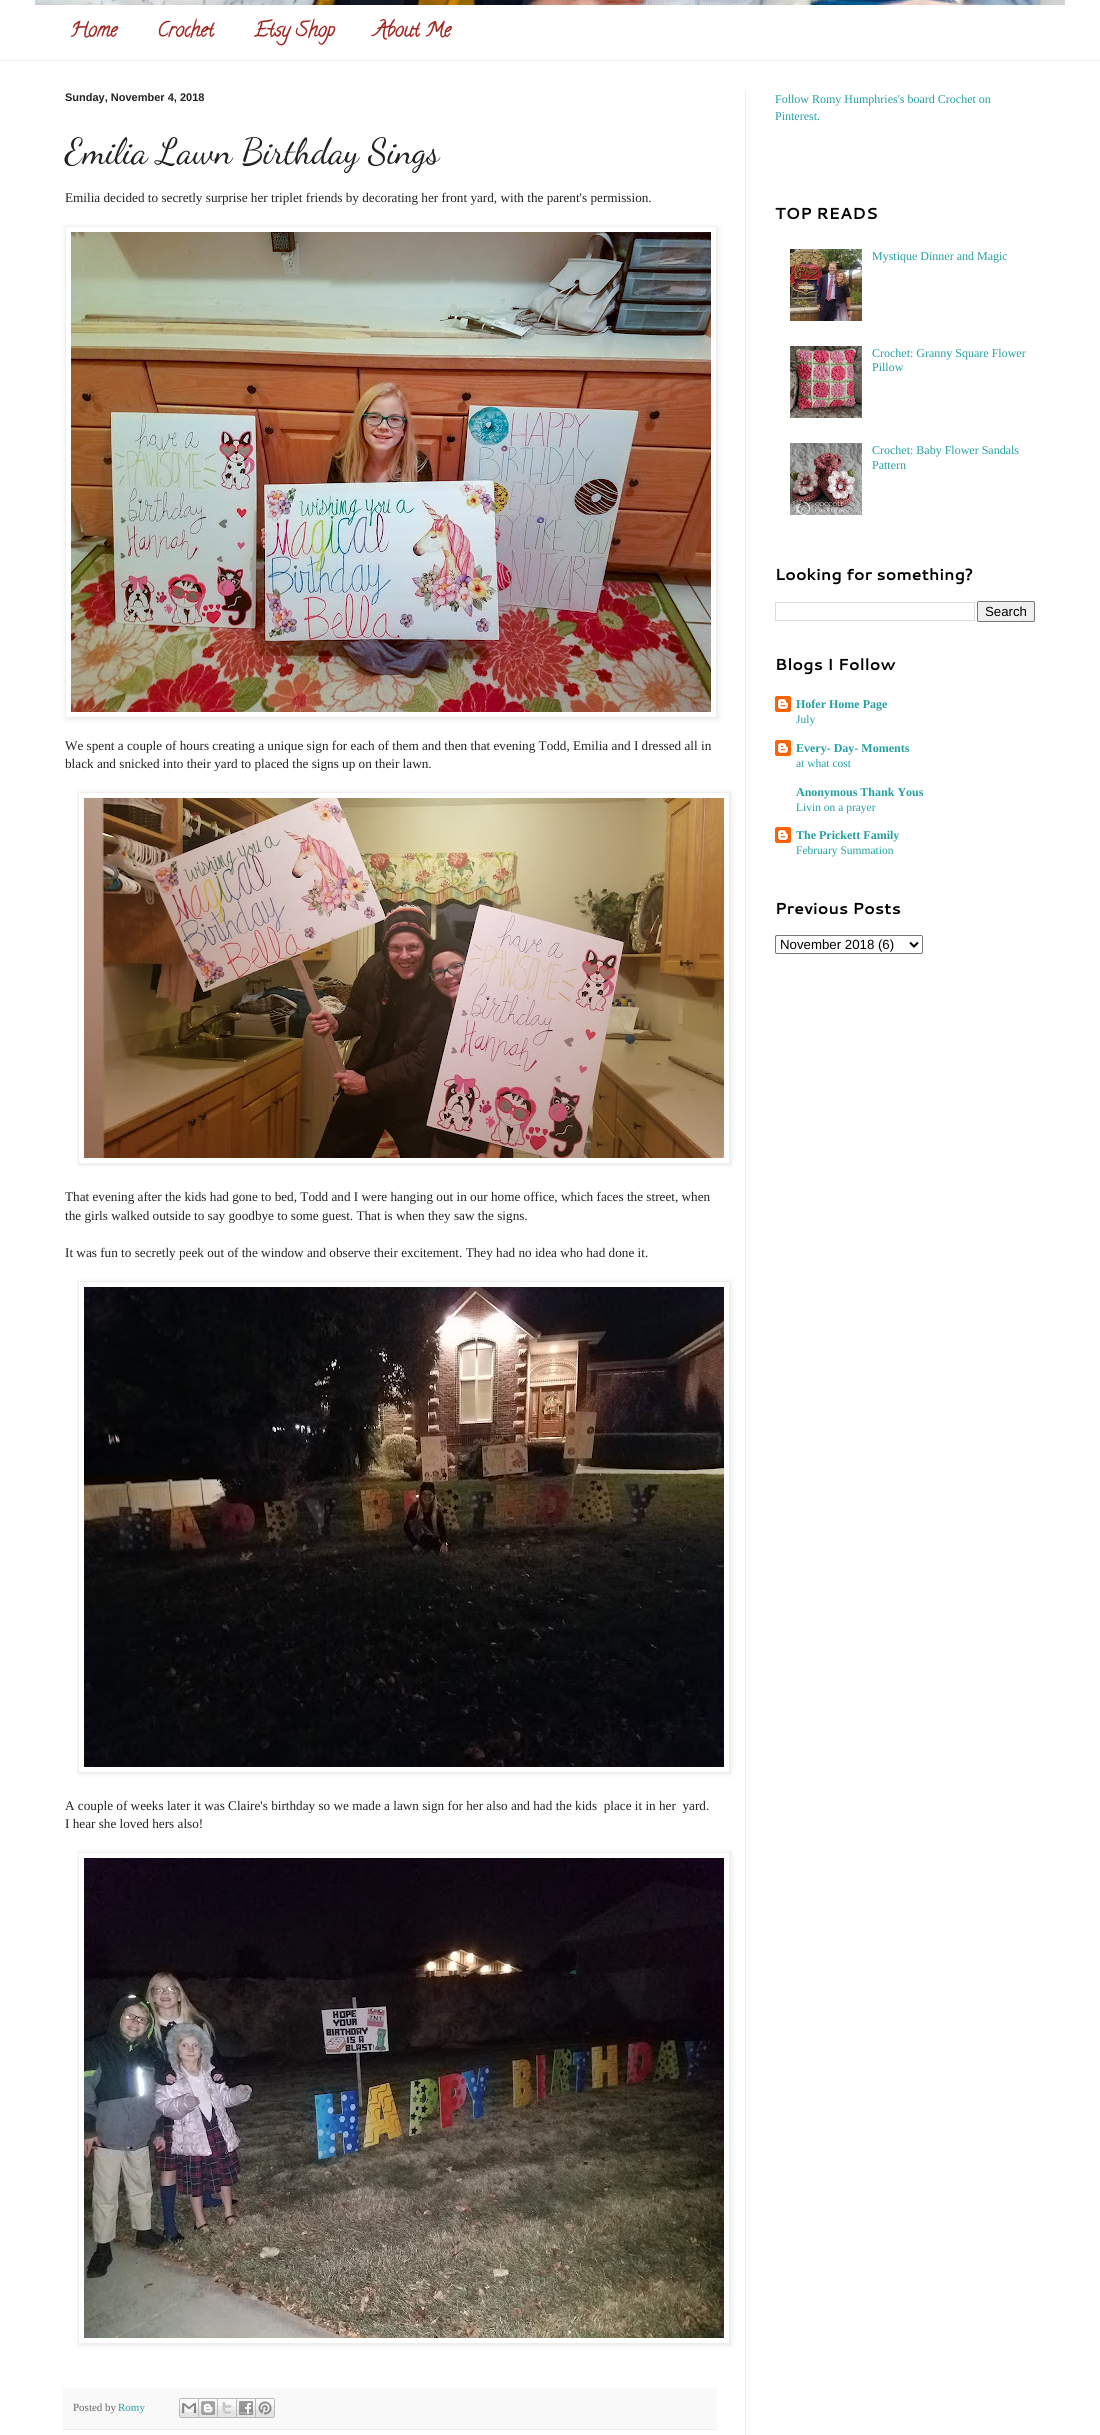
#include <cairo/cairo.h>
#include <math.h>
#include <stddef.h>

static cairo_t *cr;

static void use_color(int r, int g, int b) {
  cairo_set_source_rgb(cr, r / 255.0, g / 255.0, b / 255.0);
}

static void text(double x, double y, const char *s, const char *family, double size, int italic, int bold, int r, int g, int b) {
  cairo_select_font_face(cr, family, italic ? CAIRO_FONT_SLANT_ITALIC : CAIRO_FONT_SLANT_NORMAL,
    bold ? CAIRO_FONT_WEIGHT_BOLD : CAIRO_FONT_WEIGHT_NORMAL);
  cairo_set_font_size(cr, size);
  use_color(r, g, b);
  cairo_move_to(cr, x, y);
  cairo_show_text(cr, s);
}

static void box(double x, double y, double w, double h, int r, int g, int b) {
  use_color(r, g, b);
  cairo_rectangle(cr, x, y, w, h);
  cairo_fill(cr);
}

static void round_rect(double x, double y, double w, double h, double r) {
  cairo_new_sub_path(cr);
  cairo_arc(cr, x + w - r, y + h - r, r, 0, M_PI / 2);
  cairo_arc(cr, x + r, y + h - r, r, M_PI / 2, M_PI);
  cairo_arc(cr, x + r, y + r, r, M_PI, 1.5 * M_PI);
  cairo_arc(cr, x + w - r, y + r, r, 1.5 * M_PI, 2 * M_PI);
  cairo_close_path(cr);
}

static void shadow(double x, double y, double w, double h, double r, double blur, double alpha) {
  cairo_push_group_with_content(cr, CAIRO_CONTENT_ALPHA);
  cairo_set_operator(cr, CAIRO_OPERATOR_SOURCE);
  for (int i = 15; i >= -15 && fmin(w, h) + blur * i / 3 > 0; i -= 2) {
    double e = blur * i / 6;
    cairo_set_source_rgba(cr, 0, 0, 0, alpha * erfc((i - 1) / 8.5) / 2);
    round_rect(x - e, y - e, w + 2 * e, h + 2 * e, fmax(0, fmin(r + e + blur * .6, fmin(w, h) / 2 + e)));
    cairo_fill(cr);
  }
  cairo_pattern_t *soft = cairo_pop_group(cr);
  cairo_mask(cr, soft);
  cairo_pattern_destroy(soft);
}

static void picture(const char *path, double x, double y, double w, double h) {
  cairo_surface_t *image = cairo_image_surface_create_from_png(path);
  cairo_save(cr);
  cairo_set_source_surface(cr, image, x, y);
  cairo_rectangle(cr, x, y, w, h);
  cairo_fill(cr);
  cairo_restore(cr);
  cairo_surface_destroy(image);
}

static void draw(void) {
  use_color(255, 255, 255);
  cairo_paint(cr);
  picture("img_01.png", 35, 0, 1030, 5);
  box(0, 60, 1100, 1, 238, 238, 238);
  box(745, 91, 1, 2344, 238, 238, 238);
  cairo_save(cr);
  cairo_set_fill_rule(cr, CAIRO_FILL_RULE_EVEN_ODD);
  cairo_new_path(cr);
  cairo_move_to(cr, 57, 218);
  cairo_line_to(cr, 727, 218);
  cairo_line_to(cr, 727, 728);
  cairo_line_to(cr, 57, 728);
  cairo_close_path(cr);
  cairo_move_to(cr, 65, 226);
  cairo_line_to(cr, 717, 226);
  cairo_line_to(cr, 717, 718);
  cairo_line_to(cr, 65, 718);
  cairo_close_path(cr);
  cairo_clip(cr);
  use_color(0, 0, 0);
  shadow(66, 227, 652, 492, 0, 2.5, 0.1);
  cairo_restore(cr);
  cairo_rectangle(cr, 65.5, 226.5, 651, 491);
  cairo_set_line_width(cr, 1);
  cairo_stroke(cr);
  picture("img_02.png", 71, 232, 640, 480);
  cairo_save(cr);
  cairo_set_fill_rule(cr, CAIRO_FILL_RULE_EVEN_ODD);
  cairo_new_path(cr);
  cairo_move_to(cr, 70, 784);
  cairo_line_to(cr, 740, 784);
  cairo_line_to(cr, 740, 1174);
  cairo_line_to(cr, 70, 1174);
  cairo_close_path(cr);
  cairo_move_to(cr, 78, 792);
  cairo_line_to(cr, 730, 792);
  cairo_line_to(cr, 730, 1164);
  cairo_line_to(cr, 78, 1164);
  cairo_close_path(cr);
  cairo_clip(cr);
  use_color(0, 0, 0);
  shadow(79, 793, 652, 372, 0, 2.5, 0.1);
  cairo_restore(cr);
  cairo_rectangle(cr, 78.5, 792.5, 651, 371);
  cairo_stroke(cr);
  picture("img_03.png", 84, 798, 640, 360);
  cairo_save(cr);
  cairo_set_fill_rule(cr, CAIRO_FILL_RULE_EVEN_ODD);
  cairo_new_path(cr);
  cairo_move_to(cr, 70, 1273);
  cairo_line_to(cr, 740, 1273);
  cairo_line_to(cr, 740, 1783);
  cairo_line_to(cr, 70, 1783);
  cairo_close_path(cr);
  cairo_move_to(cr, 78, 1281);
  cairo_line_to(cr, 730, 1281);
  cairo_line_to(cr, 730, 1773);
  cairo_line_to(cr, 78, 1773);
  cairo_close_path(cr);
  cairo_clip(cr);
  use_color(0, 0, 0);
  shadow(79, 1282, 652, 492, 0, 2.5, 0.1);
  cairo_restore(cr);
  cairo_rectangle(cr, 78.5, 1281.5, 651, 491);
  cairo_stroke(cr);
  picture("img_04.png", 84, 1287, 640, 480);
  cairo_save(cr);
  cairo_set_fill_rule(cr, CAIRO_FILL_RULE_EVEN_ODD);
  cairo_new_path(cr);
  cairo_move_to(cr, 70, 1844);
  cairo_line_to(cr, 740, 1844);
  cairo_line_to(cr, 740, 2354);
  cairo_line_to(cr, 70, 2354);
  cairo_close_path(cr);
  cairo_move_to(cr, 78, 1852);
  cairo_line_to(cr, 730, 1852);
  cairo_line_to(cr, 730, 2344);
  cairo_line_to(cr, 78, 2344);
  cairo_close_path(cr);
  cairo_clip(cr);
  use_color(0, 0, 0);
  shadow(79, 1853, 652, 492, 0, 2.5, 0.1);
  cairo_restore(cr);
  cairo_rectangle(cr, 78.5, 1852.5, 651, 491);
  cairo_stroke(cr);
  picture("img_05.png", 84, 1858, 640, 480);
  box(63, 2388, 654, 41, 249, 249, 249);
  box(63, 2429, 654, 1, 238, 238, 238);
  picture("img_06.png", 179, 2398, 20, 20);
  picture("img_07.png", 199, 2398, 19, 20);
  picture("img_08.png", 218, 2398, 19, 20);
  picture("img_09.png", 237, 2398, 19, 20);
  picture("img_10.png", 256, 2398, 19, 20);
  picture("img_11.png", 790, 249, 72, 72);
  picture("img_12.png", 790, 346, 72, 72);
  picture("img_13.png", 790, 443, 72, 72);
  cairo_rectangle(cr, 775.5, 602.5, 199, 18);
  use_color(221, 221, 221);
  cairo_stroke(cr);
  use_color(239, 239, 239);
  round_rect(977.5, 601.5, 57, 20, 1.5);
  cairo_fill_preserve(cr);
  use_color(118, 118, 118);
  cairo_stroke(cr);
  picture("img_14.png", 775, 696, 16, 16);
  picture("img_14.png", 775, 740, 16, 16);
  picture("img_14.png", 775, 827, 16, 16);
  round_rect(775.5, 935.5, 147, 18, 1.5);
  cairo_stroke(cr);
  cairo_new_path(cr);
  cairo_move_to(cr, 910, 942.5);
  cairo_line_to(cr, 914, 946.5);
  cairo_line_to(cr, 918, 942.5);
  use_color(0, 0, 0);
  cairo_set_line_width(cr, 2);
  cairo_stroke(cr);
  text(70, 36, "Home", "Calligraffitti", 20, 0, 1, 163, 40, 35);
  text(157, 36, "Crochet", "Calligraffitti", 20, 0, 1, 163, 40, 35);
  text(254, 36, "Etsy Shop", "Calligraffitti", 20, 0, 1, 163, 40, 35);
  text(374, 36, "About Me", "Calligraffitti", 20, 0, 1, 163, 40, 35);
  text(65, 101, "Sunday, November 4, 2018", "Liberation Sans", 11, 0, 1, 34, 34, 34);
  text(65, 163, "Emilia Lawn Birthday Sings", "Dancing Script", 36, 0, 0, 34, 34, 34);
  text(65, 202, "Emilia decided to secretly surprise her triplet friends by decorating her front yard, with the parent's permission.", "Liberation Serif", 13.2, 0, 0, 34, 34, 34);
  text(65, 750, "We spent a couple of hours creating a unique sign for each of them and then that evening Todd, Emilia and I dressed all in", "Liberation Serif", 13.2, 0, 0, 34, 34, 34);
  text(65, 768, "black and snicked into their yard to placed the signs up on their lawn.", "Liberation Serif", 13.2, 0, 0, 34, 34, 34);
  text(65, 1201, "That evening after the kids had gone to bed, Todd and I were hanging out in our home office, which faces the street, when", "Liberation Serif", 13.2, 0, 0, 34, 34, 34);
  text(65, 1220, "the girls walked outside to say goodbye to some guest. That is when they saw the signs.", "Liberation Serif", 13.2, 0, 0, 34, 34, 34);
  text(65, 1257, "It was fun to secretly peek out of the window and observe their excitement. They had no idea who had done it.", "Liberation Serif", 13.2, 0, 0, 34, 34, 34);
  text(65, 1810, "A couple of weeks later it was Claire's birthday so we made a lawn sign for her also and had the kids  place it in her  yard.", "Liberation Serif", 13.2, 0, 0, 34, 34, 34);
  text(65, 1828, "I hear she loved hers also!", "Liberation Serif", 13.2, 0, 0, 34, 34, 34);
  text(73, 2411, "Posted by", "Liberation Serif", 11, 0, 0, 102, 102, 102);
  text(118, 2411, "Romy", "Liberation Serif", 11, 0, 0, 36, 159, 163);
  text(775, 103, "Follow Romy Humphries's board Crochet on", "Liberation Serif", 12, 0, 0, 36, 159, 163);
  text(775, 120, "Pinterest.", "Liberation Serif", 12, 0, 0, 36, 159, 163);
  text(775, 219, "TOP READS", "Cantarell", 16, 0, 1, 0, 0, 0);
  text(872, 260, "Mystique Dinner and Magic", "Liberation Serif", 12, 0, 0, 36, 159, 163);
  text(872, 357, "Crochet: Granny Square Flower", "Liberation Serif", 12, 0, 0, 36, 159, 163);
  text(872, 371, "Pillow", "Liberation Serif", 12, 0, 0, 36, 159, 163);
  text(872, 454, "Crochet: Baby Flower Sandals", "Liberation Serif", 12, 0, 0, 36, 159, 163);
  text(872, 469, "Pattern", "Liberation Serif", 12, 0, 0, 36, 159, 163);
  text(775, 580, "Looking for something?", "Cantarell", 16, 0, 1, 0, 0, 0);
  text(985, 616, "Search", "Liberation Sans", 13.25, 0, 0, 0, 0, 0);
  text(775, 670, "Blogs I Follow", "Cantarell", 16, 0, 1, 0, 0, 0);
  text(796, 708, "Hofer Home Page", "Liberation Serif", 12, 0, 1, 36, 159, 163);
  text(796, 723, "July", "Liberation Serif", 11.5, 0, 0, 36, 159, 163);
  text(796, 752, "Every- Day- Moments", "Liberation Serif", 12, 0, 1, 36, 159, 163);
  text(796, 767, "at what cost", "Liberation Serif", 11.5, 0, 0, 36, 159, 163);
  text(796, 796, "Anonymous Thank Yous", "Liberation Serif", 12, 0, 1, 36, 159, 163);
  text(796, 811, "Livin on a prayer", "Liberation Serif", 11.5, 0, 0, 36, 159, 163);
  text(796, 839, "The Prickett Family", "Liberation Serif", 12, 0, 1, 36, 159, 163);
  text(796, 854, "February Summation", "Liberation Serif", 11.5, 0, 0, 36, 159, 163);
  text(775, 914, "Previous Posts", "Cantarell", 16, 0, 1, 0, 0, 0);
  text(780, 949, "November 2018 (6)", "Liberation Sans", 13.25, 0, 0, 0, 0, 0);
}

int main(void) {
  cairo_surface_t *surface = cairo_image_surface_create(CAIRO_FORMAT_RGB24, 1100, 2435);
  cr = cairo_create(surface);
  cairo_font_options_t *options = cairo_font_options_create();
  cairo_font_options_set_hint_metrics(options, CAIRO_HINT_METRICS_OFF);
  cairo_font_options_set_hint_style(options, CAIRO_HINT_STYLE_NONE);
  cairo_set_font_options(cr, options);
  cairo_set_miter_limit(cr, 4);
  draw();
  cairo_surface_write_to_png(surface, "out.png");
  cairo_font_options_destroy(options);
  cairo_destroy(cr);
  cairo_surface_destroy(surface);
  return 0;
}
